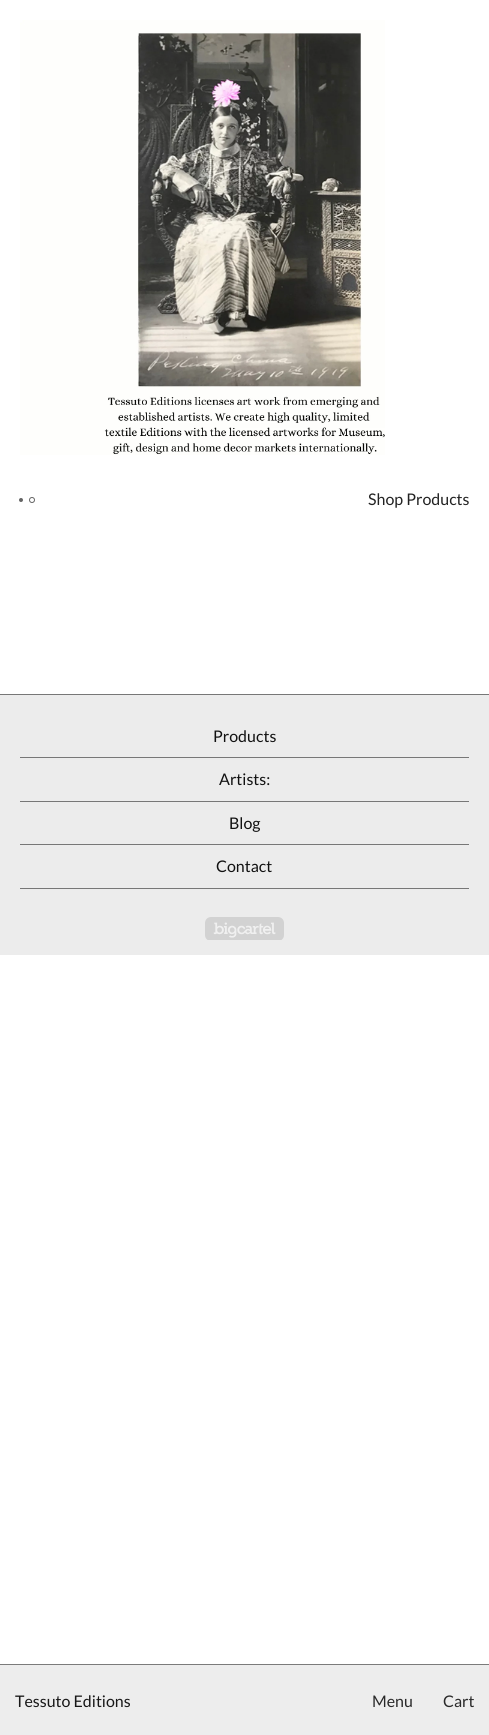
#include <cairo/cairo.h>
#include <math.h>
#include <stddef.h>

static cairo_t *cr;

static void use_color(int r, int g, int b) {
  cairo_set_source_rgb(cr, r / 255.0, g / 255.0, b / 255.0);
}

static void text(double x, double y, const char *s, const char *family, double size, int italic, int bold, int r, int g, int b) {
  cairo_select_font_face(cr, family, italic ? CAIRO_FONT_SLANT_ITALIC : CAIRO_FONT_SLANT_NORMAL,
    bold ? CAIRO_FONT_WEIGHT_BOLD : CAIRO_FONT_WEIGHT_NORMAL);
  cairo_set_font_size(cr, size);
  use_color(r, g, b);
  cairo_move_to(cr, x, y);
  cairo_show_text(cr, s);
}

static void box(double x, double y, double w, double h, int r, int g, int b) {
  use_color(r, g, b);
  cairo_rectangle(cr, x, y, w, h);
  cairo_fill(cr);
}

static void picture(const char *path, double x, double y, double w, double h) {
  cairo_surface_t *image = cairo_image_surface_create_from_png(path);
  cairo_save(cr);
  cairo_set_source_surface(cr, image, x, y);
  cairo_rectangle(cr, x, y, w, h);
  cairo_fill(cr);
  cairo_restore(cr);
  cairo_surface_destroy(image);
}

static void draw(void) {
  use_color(255, 255, 255);
  cairo_paint(cr);
  picture("img_01.png", 20, 20, 365, 435);
  use_color(100, 100, 100);
  cairo_arc(cr, 21, 500, 2, 0, 2 * M_PI);
  cairo_fill(cr);
  cairo_arc(cr, 32, 500, 2.5, 0, 2 * M_PI);
  cairo_set_line_width(cr, 1);
  cairo_stroke(cr);
  box(0, 695, 489, 260, 236, 236, 236);
  box(0, 694, 489, 1, 119, 119, 119);
  box(20, 757, 449, 1, 119, 119, 119);
  box(20, 801, 449, 1, 119, 119, 119);
  box(20, 844, 449, 1, 119, 119, 119);
  box(20, 888, 449, 1, 119, 119, 119);
  picture("img_02.png", 205, 917, 79, 23);
  box(0, 1665, 489, 70, 237, 237, 237);
  box(0, 1664, 489, 1, 123, 123, 123);
  text(368, 505, "Shop Products", "Lato", 16, 0, 0, 34, 34, 34);
  text(213, 742, "Products", "Lato", 16, 0, 0, 17, 17, 17);
  text(219, 785, "Artists:", "Lato", 16, 0, 0, 17, 17, 17);
  text(229, 829, "Blog", "Lato", 16, 0, 0, 17, 17, 17);
  text(216, 872, "Contact", "Lato", 16, 0, 0, 17, 17, 17);
  text(15, 1707, "Tessuto Editions", "Lato", 16, 0, 0, 24, 24, 24);
  text(372, 1707, "Menu", "Lato", 16, 0, 0, 41, 41, 41);
  text(443, 1707, "Cart", "Lato", 16, 0, 0, 41, 41, 41);
}

int main(void) {
  cairo_surface_t *surface = cairo_image_surface_create(CAIRO_FORMAT_RGB24, 489, 1735);
  cr = cairo_create(surface);
  cairo_font_options_t *options = cairo_font_options_create();
  cairo_font_options_set_hint_metrics(options, CAIRO_HINT_METRICS_OFF);
  cairo_font_options_set_hint_style(options, CAIRO_HINT_STYLE_NONE);
  cairo_set_font_options(cr, options);
  cairo_set_miter_limit(cr, 4);
  draw();
  cairo_surface_write_to_png(surface, "out.png");
  cairo_font_options_destroy(options);
  cairo_destroy(cr);
  cairo_surface_destroy(surface);
  return 0;
}
